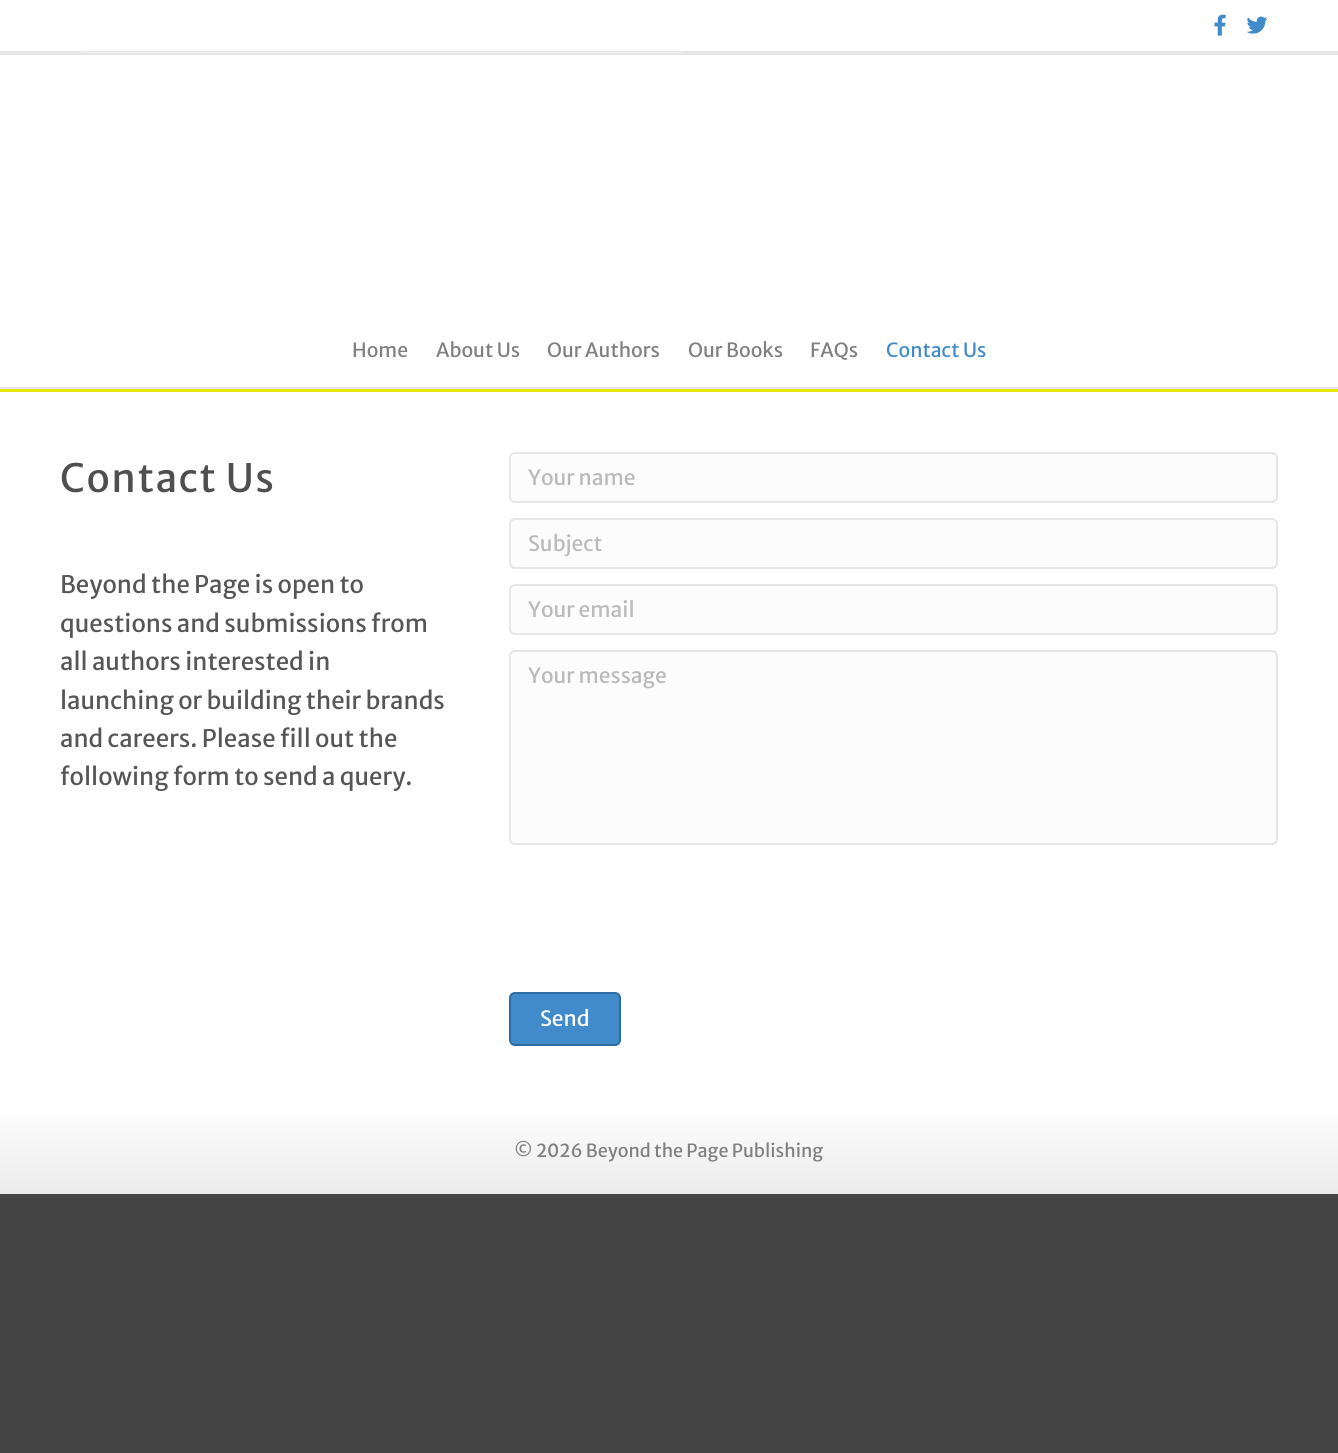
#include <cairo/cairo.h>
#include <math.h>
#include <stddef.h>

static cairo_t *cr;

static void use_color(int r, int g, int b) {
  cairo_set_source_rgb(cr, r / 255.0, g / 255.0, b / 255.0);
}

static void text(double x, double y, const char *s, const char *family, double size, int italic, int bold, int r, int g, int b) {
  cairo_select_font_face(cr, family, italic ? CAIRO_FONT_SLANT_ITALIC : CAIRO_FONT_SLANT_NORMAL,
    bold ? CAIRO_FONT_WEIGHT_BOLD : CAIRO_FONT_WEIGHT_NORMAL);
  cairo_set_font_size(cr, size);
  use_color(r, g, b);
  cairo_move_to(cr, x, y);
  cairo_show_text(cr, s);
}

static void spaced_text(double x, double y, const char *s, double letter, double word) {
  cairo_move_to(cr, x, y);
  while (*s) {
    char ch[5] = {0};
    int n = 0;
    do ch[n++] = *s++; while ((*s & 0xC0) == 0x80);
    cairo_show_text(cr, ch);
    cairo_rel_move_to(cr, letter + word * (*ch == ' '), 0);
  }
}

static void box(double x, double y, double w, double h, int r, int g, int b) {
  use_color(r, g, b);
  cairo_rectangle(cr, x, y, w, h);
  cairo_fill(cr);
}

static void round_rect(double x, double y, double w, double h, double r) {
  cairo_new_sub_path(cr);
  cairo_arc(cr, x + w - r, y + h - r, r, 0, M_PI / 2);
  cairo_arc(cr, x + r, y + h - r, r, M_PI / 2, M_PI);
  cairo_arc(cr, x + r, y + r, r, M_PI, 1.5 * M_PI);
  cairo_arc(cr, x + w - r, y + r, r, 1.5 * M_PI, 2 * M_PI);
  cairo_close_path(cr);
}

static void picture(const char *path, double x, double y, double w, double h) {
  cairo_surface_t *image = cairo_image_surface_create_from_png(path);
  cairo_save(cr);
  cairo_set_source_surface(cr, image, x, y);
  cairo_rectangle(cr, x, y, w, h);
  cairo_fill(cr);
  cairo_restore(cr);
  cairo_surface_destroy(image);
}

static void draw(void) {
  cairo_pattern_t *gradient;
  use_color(68, 68, 68);
  cairo_paint(cr);
  box(0, 0, 1338, 51, 255, 255, 255);
  box(0, 51, 1338, 4, 230, 230, 230);
  picture("img_01.png", 1214, 14, 12, 22);
  picture("img_02.png", 1246, 16, 22, 18);
  box(0, 389, 1338, 3, 230, 230, 0);
  picture("img_03.png", 82, 52, 601, 1);
  box(0, 55, 1338, 332, 255, 255, 255);
  box(0, 387, 1338, 2, 230, 230, 230);
  box(0, 392, 1338, 714, 255, 255, 255);
  use_color(252, 252, 252);
  round_rect(510, 453, 767, 49, 5);
  cairo_fill_preserve(cr);
  use_color(230, 230, 230);
  cairo_stroke(cr);
  use_color(252, 252, 252);
  round_rect(510, 519, 767, 49, 5);
  cairo_fill_preserve(cr);
  use_color(230, 230, 230);
  cairo_stroke(cr);
  use_color(252, 252, 252);
  round_rect(510, 585, 767, 49, 5);
  cairo_fill_preserve(cr);
  use_color(230, 230, 230);
  cairo_stroke(cr);
  use_color(252, 252, 252);
  round_rect(510, 651, 767, 193, 5);
  cairo_fill_preserve(cr);
  use_color(230, 230, 230);
  cairo_stroke(cr);
  use_color(66, 139, 202);
  round_rect(510, 993, 110, 52, 5);
  cairo_fill_preserve(cr);
  use_color(45, 108, 162);
  cairo_stroke(cr);
  gradient = cairo_pattern_create_linear(669, 1106, 669, 1194);
  cairo_pattern_add_color_stop_rgba(gradient, 0, 1, 1, 1, 1);
  cairo_pattern_add_color_stop_rgba(gradient, 1, 0.922, 0.922, 0.922, 1);
  cairo_set_source(cr, gradient);
  cairo_pattern_destroy(gradient);
  cairo_rectangle(cr, 0, 1106, 1338, 88);
  cairo_fill(cr);
  text(352, 357, "Home", "Merriweather Sans", 19.5, 0, 0, 128, 128, 128);
  text(436, 357, "About Us", "Merriweather Sans", 19.5, 0, 0, 128, 128, 128);
  text(547, 357, "Our Authors", "Merriweather Sans", 19.5, 0, 0, 128, 128, 128);
  text(688, 357, "Our Books", "Merriweather Sans", 19.5, 0, 0, 128, 128, 128);
  text(810, 357, "FAQs", "Merriweather Sans", 19.5, 0, 0, 128, 128, 128);
  text(886, 357, "Contact Us", "Merriweather Sans", 19.5, 0, 0, 66, 139, 202);
  cairo_set_font_size(cr, 39);
  use_color(79, 79, 79);
  spaced_text(60, 492, "Contact Us", 1.5, 0);
  text(60, 593, "Beyond the Page is open to", "Merriweather Sans", 24, 0, 0, 86, 86, 86);
  text(60, 632, "questions and submissions from", "Merriweather Sans", 24, 0, 0, 86, 86, 86);
  text(60, 670, "all authors interested in", "Merriweather Sans", 24, 0, 0, 86, 86, 86);
  text(60, 709, "launching or building their brands", "Merriweather Sans", 24, 0, 0, 86, 86, 86);
  text(60, 747, "and careers. Please fill out the", "Merriweather Sans", 24, 0, 0, 86, 86, 86);
  text(60, 785, "following form to send a query.", "Merriweather Sans", 24, 0, 0, 86, 86, 86);
  text(528, 485, "Your name", "Merriweather Sans", 21, 0, 0, 186, 186, 186);
  text(528, 551, "Subject", "Merriweather Sans", 21, 0, 0, 186, 186, 186);
  text(528, 617, "Your email", "Merriweather Sans", 21, 0, 0, 186, 186, 186);
  text(528, 683, "Your message", "Merriweather Sans", 21, 0, 0, 186, 186, 186);
  text(540, 1026, "Send", "Merriweather Sans", 21, 0, 0, 255, 255, 255);
  text(514, 1157, "© 2026 Beyond the Page Publishing", "Merriweather Sans", 18, 0, 0, 128, 128, 128);
}

int main(void) {
  cairo_surface_t *surface = cairo_image_surface_create(CAIRO_FORMAT_RGB24, 1338, 1453);
  cr = cairo_create(surface);
  cairo_font_options_t *options = cairo_font_options_create();
  cairo_font_options_set_hint_metrics(options, CAIRO_HINT_METRICS_OFF);
  cairo_font_options_set_hint_style(options, CAIRO_HINT_STYLE_NONE);
  cairo_set_font_options(cr, options);
  cairo_set_miter_limit(cr, 4);
  draw();
  cairo_surface_write_to_png(surface, "out.png");
  cairo_font_options_destroy(options);
  cairo_destroy(cr);
  cairo_surface_destroy(surface);
  return 0;
}
